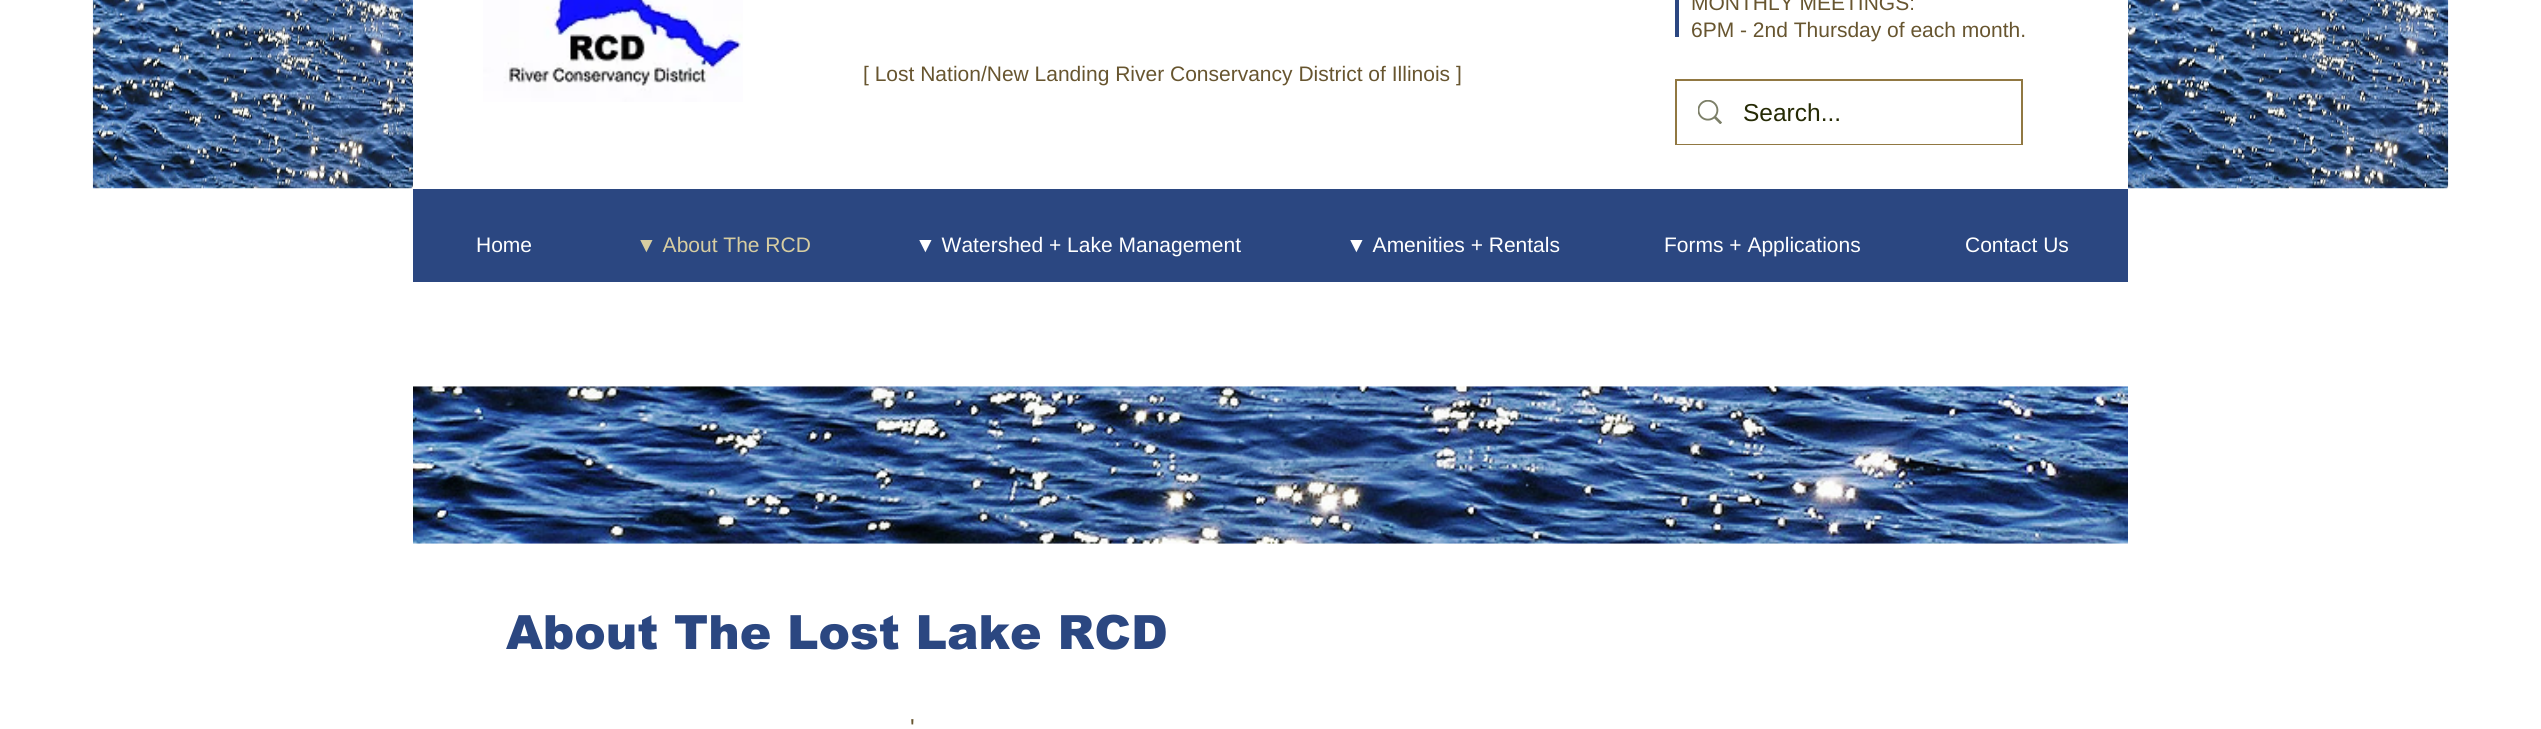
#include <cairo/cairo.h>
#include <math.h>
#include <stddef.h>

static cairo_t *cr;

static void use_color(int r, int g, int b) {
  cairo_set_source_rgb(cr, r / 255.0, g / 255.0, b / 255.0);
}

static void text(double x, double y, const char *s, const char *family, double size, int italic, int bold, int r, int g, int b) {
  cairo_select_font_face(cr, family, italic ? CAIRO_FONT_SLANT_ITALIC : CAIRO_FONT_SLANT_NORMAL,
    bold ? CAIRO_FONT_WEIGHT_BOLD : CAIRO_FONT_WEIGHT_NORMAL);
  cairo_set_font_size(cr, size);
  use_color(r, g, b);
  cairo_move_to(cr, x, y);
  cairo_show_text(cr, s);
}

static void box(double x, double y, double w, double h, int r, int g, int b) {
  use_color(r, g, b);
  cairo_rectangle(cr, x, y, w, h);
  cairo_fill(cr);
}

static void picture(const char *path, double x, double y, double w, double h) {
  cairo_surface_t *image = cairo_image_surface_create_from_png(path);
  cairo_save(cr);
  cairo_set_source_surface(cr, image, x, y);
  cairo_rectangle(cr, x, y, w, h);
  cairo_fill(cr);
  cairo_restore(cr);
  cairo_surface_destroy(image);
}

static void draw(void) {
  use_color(255, 255, 255);
  cairo_paint(cr);
  picture("img_01.png", 92, 0, 321, 189);
  picture("img_02.png", 483, 0, 260, 102);
  box(1675, 0, 4, 37, 43, 71, 129);
  picture("img_03.png", 2128, 0, 321, 189);
  cairo_rectangle(cr, 1676, 80, 346, 64);
  use_color(145, 120, 66);
  cairo_stroke(cr);
  box(1677, 143, 344, 1, 255, 255, 255);
  picture("img_04.png", 1698, 100, 24, 24);
  box(413, 189, 1715, 93, 43, 71, 129);
  picture("img_05.png", 413, 386, 1715, 158);
  text(863, 81, "[ Lost Nation/New Landing River Conservancy District of Illinois ]", "Liberation Sans", 21, 0, 0, 103, 85, 47);
  text(1691, 10, "MONTHLY MEETINGS:", "Liberation Sans", 21, 0, 0, 103, 85, 47);
  text(1691, 37, "6PM - 2nd Thursday of each month.", "Liberation Sans", 21, 0, 0, 103, 85, 47);
  text(1743, 121, "Search...", "Liberation Sans", 24.5, 0, 0, 37, 42, 4);
  text(476, 252, "Home", "Liberation Sans", 21, 0, 0, 255, 255, 255);
  text(636, 252, "▼ About The RCD", "Liberation Sans", 21, 0, 0, 215, 205, 161);
  text(915, 252, "▼ Watershed + Lake Management", "Liberation Sans", 21, 0, 0, 255, 255, 255);
  text(1346, 252, "▼ Amenities + Rentals", "Liberation Sans", 21, 0, 0, 255, 255, 255);
  text(1664, 252, "Forms + Applications", "Liberation Sans", 21, 0, 0, 255, 255, 255);
  text(1965, 252, "Contact Us", "Liberation Sans", 21, 0, 0, 255, 255, 255);
  text(506, 649, "About The Lost Lake RCD", "arial Black", 47.25, 0, 0, 43, 71, 129);
  text(910, 736, "'", "Liberation Sans", 24.5, 0, 0, 103, 85, 47);
}

int main(void) {
  cairo_surface_t *surface = cairo_image_surface_create(CAIRO_FORMAT_RGB24, 2541, 729);
  cr = cairo_create(surface);
  cairo_font_options_t *options = cairo_font_options_create();
  cairo_font_options_set_hint_metrics(options, CAIRO_HINT_METRICS_OFF);
  cairo_font_options_set_hint_style(options, CAIRO_HINT_STYLE_NONE);
  cairo_set_font_options(cr, options);
  cairo_set_miter_limit(cr, 4);
  draw();
  cairo_surface_write_to_png(surface, "out.png");
  cairo_font_options_destroy(options);
  cairo_destroy(cr);
  cairo_surface_destroy(surface);
  return 0;
}
